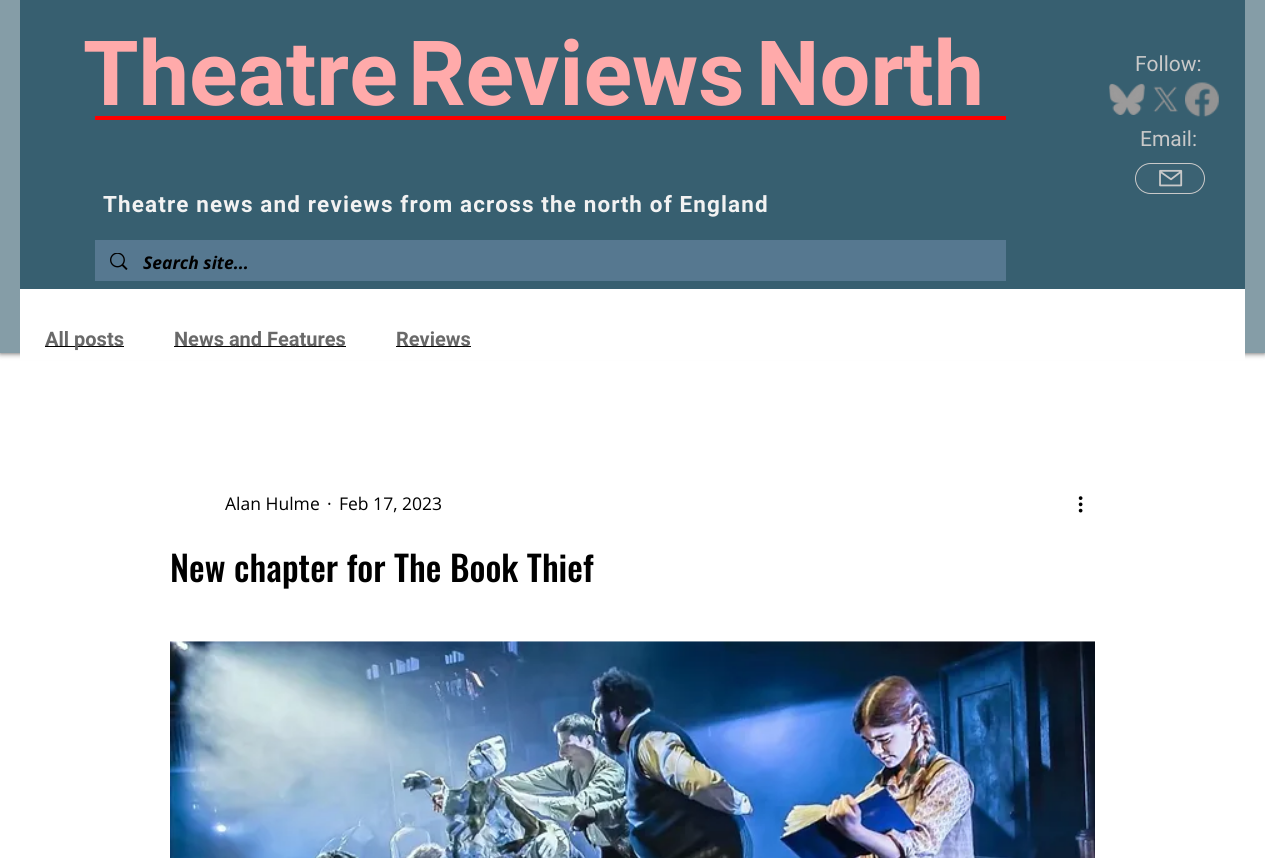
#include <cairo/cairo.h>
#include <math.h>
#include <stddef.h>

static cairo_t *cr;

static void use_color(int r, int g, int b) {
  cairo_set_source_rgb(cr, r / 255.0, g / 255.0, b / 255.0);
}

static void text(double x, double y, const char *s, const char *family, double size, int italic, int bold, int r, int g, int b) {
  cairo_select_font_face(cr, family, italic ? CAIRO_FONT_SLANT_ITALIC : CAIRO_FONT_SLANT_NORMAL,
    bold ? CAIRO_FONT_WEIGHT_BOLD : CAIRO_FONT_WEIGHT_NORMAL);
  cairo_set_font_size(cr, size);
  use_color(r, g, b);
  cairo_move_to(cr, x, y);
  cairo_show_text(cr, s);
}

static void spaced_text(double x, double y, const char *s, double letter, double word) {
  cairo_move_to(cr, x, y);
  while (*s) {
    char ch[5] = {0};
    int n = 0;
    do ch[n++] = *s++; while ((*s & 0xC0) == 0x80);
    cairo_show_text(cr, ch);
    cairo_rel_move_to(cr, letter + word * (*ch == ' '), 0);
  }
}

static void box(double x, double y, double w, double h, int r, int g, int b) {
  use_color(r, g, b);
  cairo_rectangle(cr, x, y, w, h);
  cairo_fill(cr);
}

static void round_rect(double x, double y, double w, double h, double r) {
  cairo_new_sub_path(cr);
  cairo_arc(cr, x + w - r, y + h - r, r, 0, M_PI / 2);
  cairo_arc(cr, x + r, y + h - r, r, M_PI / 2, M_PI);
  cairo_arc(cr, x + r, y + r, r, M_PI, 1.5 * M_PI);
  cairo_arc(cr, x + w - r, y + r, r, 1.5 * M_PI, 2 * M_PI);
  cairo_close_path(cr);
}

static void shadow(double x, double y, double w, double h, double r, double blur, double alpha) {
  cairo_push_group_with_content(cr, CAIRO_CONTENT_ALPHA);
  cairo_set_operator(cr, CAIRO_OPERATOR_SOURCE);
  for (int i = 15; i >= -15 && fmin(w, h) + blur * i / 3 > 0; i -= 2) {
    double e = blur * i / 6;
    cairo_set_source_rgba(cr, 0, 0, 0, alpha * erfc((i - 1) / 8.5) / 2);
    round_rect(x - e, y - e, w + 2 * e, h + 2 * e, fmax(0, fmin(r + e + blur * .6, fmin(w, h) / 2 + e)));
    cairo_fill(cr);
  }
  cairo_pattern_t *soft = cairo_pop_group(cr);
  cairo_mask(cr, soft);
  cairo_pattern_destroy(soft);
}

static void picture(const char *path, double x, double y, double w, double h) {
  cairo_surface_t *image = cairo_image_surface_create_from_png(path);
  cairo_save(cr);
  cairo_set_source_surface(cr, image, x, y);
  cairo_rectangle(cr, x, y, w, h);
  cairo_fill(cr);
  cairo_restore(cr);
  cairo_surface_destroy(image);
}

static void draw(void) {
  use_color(255, 255, 255);
  cairo_paint(cr);
  cairo_save(cr);
  cairo_set_fill_rule(cr, CAIRO_FILL_RULE_EVEN_ODD);
  cairo_new_path(cr);
  cairo_move_to(cr, 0, 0);
  cairo_line_to(cr, 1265, 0);
  cairo_line_to(cr, 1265, 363);
  cairo_line_to(cr, 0, 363);
  cairo_close_path(cr);
  cairo_move_to(cr, 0, 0);
  cairo_line_to(cr, 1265, 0);
  cairo_line_to(cr, 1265, 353);
  cairo_line_to(cr, 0, 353);
  cairo_close_path(cr);
  cairo_clip(cr);
  use_color(0, 0, 0);
  shadow(0, 0, 1265, 353, 0, 3, 0.7);
  cairo_restore(cr);
  cairo_set_source_rgba(cr, 0.063, 0.247, 0.329, 0.51);
  cairo_rectangle(cr, 0, 0, 1265, 353);
  cairo_fill(cr);
  cairo_set_source_rgba(cr, 0.063, 0.247, 0.329, 0.66);
  cairo_rectangle(cr, 20, 0, 1225, 289);
  cairo_fill(cr);
  box(95, 116, 911, 4, 255, 0, 0);
  picture("img_01.png", 1109, 83, 36, 32);
  picture("img_02.png", 1153, 86, 25, 26);
  picture("img_03.png", 1185, 82, 34, 35);
  use_color(59, 98, 115);
  round_rect(1135.5, 163.5, 69, 30, 15);
  cairo_fill_preserve(cr);
  use_color(201, 201, 201);
  cairo_set_line_width(cr, 1);
  cairo_stroke(cr);
  picture("img_04.png", 1159, 169, 24, 18);
  box(95, 240, 911, 41, 86, 120, 144);
  picture("img_05.png", 110, 253, 18, 17);
  box(20, 289, 1225, 71, 255, 255, 255);
  box(45, 346, 79, 1, 0, 0, 0);
  box(174, 346, 172, 1, 0, 0, 0);
  box(396, 346, 75, 1, 0, 0, 0);
  picture("img_06.png", 1078, 496, 5, 17);
  picture("img_07.png", 170, 641, 925, 217);
  text(83, 105, "Theatre", "Roboto", 90, 0, 1, 255, 170, 170);
  text(408, 105, "Reviews", "Roboto", 90, 0, 1, 255, 170, 170);
  text(756, 105, "North", "Roboto", 90, 0, 1, 255, 170, 170);
  cairo_set_font_size(cr, 22.5);
  use_color(242, 242, 242);
  spaced_text(103, 212, "Theatre news and reviews from across the north of England", 1.12, 0);
  text(1135, 71, "Follow:", "Roboto", 21, 0, 0, 201, 201, 201);
  text(1140, 146, "Email:", "Roboto", 21, 0, 0, 201, 201, 201);
  cairo_save(cr);
  cairo_rectangle(cr, 143, 250, 811, 24);
  cairo_clip(cr);
  text(143, 269, "Search site...", "Open Sans", 17.5, 1, 1, 0, 0, 0);
  cairo_restore(cr);
  text(45, 346, "All posts", "Roboto", 20, 0, 1, 105, 105, 105);
  text(174, 346, "News and Features", "Roboto", 20, 0, 1, 105, 105, 105);
  text(396, 346, "Reviews", "Roboto", 20, 0, 1, 105, 105, 105);
  text(225, 510, "Alan Hulme", "Open Sans", 17.5, 0, 0, 0, 0, 0);
  text(327, 510, "·", "Open Sans", 17.5, 0, 0, 0, 0, 0);
  text(339, 510, "Feb 17, 2023", "Open Sans", 17.5, 0, 0, 0, 0, 0);
  text(170, 582, "New chapter for The Book Thief", "Oswald Medium", 35, 0, 0, 0, 0, 0);
}

int main(void) {
  cairo_surface_t *surface = cairo_image_surface_create(CAIRO_FORMAT_RGB24, 1265, 858);
  cr = cairo_create(surface);
  cairo_font_options_t *options = cairo_font_options_create();
  cairo_font_options_set_hint_metrics(options, CAIRO_HINT_METRICS_OFF);
  cairo_font_options_set_hint_style(options, CAIRO_HINT_STYLE_NONE);
  cairo_set_font_options(cr, options);
  cairo_set_miter_limit(cr, 4);
  draw();
  cairo_surface_write_to_png(surface, "out.png");
  cairo_font_options_destroy(options);
  cairo_destroy(cr);
  cairo_surface_destroy(surface);
  return 0;
}
